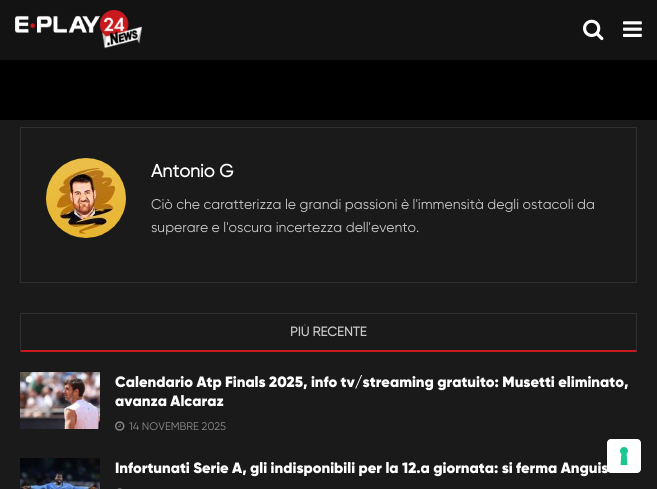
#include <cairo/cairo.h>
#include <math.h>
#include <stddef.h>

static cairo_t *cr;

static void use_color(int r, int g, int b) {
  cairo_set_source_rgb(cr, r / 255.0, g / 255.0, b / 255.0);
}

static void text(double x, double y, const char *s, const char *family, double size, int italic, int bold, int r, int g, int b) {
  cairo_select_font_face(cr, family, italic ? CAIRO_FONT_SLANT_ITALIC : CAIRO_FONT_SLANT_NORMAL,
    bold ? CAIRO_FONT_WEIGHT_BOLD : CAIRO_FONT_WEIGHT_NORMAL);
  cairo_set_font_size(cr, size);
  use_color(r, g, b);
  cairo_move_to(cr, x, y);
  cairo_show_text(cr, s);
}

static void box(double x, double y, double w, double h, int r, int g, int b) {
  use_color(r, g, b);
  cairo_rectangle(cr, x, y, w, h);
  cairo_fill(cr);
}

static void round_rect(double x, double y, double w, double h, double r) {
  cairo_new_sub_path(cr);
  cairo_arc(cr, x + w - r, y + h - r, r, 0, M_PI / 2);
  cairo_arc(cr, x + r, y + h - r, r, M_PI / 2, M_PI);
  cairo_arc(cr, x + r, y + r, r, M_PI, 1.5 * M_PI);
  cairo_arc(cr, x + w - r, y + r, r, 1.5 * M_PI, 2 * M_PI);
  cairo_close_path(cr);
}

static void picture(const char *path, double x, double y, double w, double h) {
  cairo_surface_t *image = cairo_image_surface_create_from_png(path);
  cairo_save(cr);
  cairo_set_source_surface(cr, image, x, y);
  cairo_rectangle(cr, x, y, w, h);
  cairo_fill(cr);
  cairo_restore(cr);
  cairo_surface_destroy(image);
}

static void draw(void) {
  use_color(26, 26, 26);
  cairo_paint(cr);
  box(0, 60, 657, 60, 0, 0, 0);
  box(0, 0, 657, 60, 19, 19, 19);
  picture("img_01.png", 15, 10, 127, 39);
  picture("img_02.png", 583, 19, 21, 22);
  picture("img_03.png", 623, 21, 19, 16);
  cairo_rectangle(cr, 20.5, 127.5, 616, 155);
  use_color(48, 48, 48);
  cairo_set_line_width(cr, 1);
  cairo_stroke(cr);
  picture("img_04.png", 46, 158, 80, 80);
  box(20, 313, 617, 1, 48, 48, 48);
  cairo_new_path(cr);
  cairo_move_to(cr, 637, 313);
  cairo_line_to(cr, 637, 352);
  cairo_line_to(cr, 636, 350);
  cairo_line_to(cr, 636, 314);
  cairo_close_path(cr);
  cairo_fill(cr);
  use_color(202, 24, 31);
  cairo_new_path(cr);
  cairo_move_to(cr, 637, 352);
  cairo_line_to(cr, 20, 352);
  cairo_line_to(cr, 21, 350);
  cairo_line_to(cr, 636, 350);
  cairo_close_path(cr);
  cairo_fill(cr);
  use_color(48, 48, 48);
  cairo_new_path(cr);
  cairo_move_to(cr, 20, 352);
  cairo_line_to(cr, 20, 313);
  cairo_line_to(cr, 21, 314);
  cairo_line_to(cr, 21, 350);
  cairo_close_path(cr);
  cairo_fill(cr);
  picture("img_05.png", 20, 372, 80, 57);
  picture("img_06.png", 115, 421, 10, 10);
  picture("img_07.png", 20, 458, 80, 31);
  picture("img_08.png", 117, 488, 5, 1);
  text(151, 177, "Antonio G", "Gilroy", 18, 0, 1, 255, 255, 255);
  text(151, 209, "Ciò che caratterizza le grandi passioni è l'immensità degli ostacoli da", "Gilroy", 14, 0, 0, 202, 202, 202);
  text(151, 232, "superare e l'oscura incertezza dell'evento.", "Gilroy", 14, 0, 0, 202, 202, 202);
  text(290, 336, "PIÙ RECENTE", "Gilroy", 13, 0, 1, 202, 202, 202);
  text(115, 387, "Calendario Atp Finals 2025, info tv/streaming gratuito: Musetti eliminato,", "Gilroy Black", 15, 0, 0, 255, 255, 255);
  text(115, 406, "avanza Alcaraz", "Gilroy Black", 15, 0, 0, 255, 255, 255);
  text(129, 430, "14 NOVEMBRE 2025", "Gilroy", 11, 0, 0, 139, 139, 139);
  text(115, 473, "Infortunati Serie A, gli indisponibili per la 12.a giornata: si ferma Anguis", "Gilroy Black", 15, 0, 0, 255, 255, 255);
  round_rect(606.5, 438.5, 35, 35, 4.5);
  cairo_set_source_rgba(cr, 0, 0, 0, 0.15);
  cairo_stroke(cr);
  use_color(255, 255, 255);
  round_rect(607, 439, 34, 34, 4);
  cairo_fill(cr);
  picture("img_09.png", 620, 447, 8, 18);
}

int main(void) {
  cairo_surface_t *surface = cairo_image_surface_create(CAIRO_FORMAT_RGB24, 657, 489);
  cr = cairo_create(surface);
  cairo_font_options_t *options = cairo_font_options_create();
  cairo_font_options_set_hint_metrics(options, CAIRO_HINT_METRICS_OFF);
  cairo_font_options_set_hint_style(options, CAIRO_HINT_STYLE_NONE);
  cairo_set_font_options(cr, options);
  cairo_set_miter_limit(cr, 4);
  draw();
  cairo_surface_write_to_png(surface, "out.png");
  cairo_font_options_destroy(options);
  cairo_destroy(cr);
  cairo_surface_destroy(surface);
  return 0;
}
